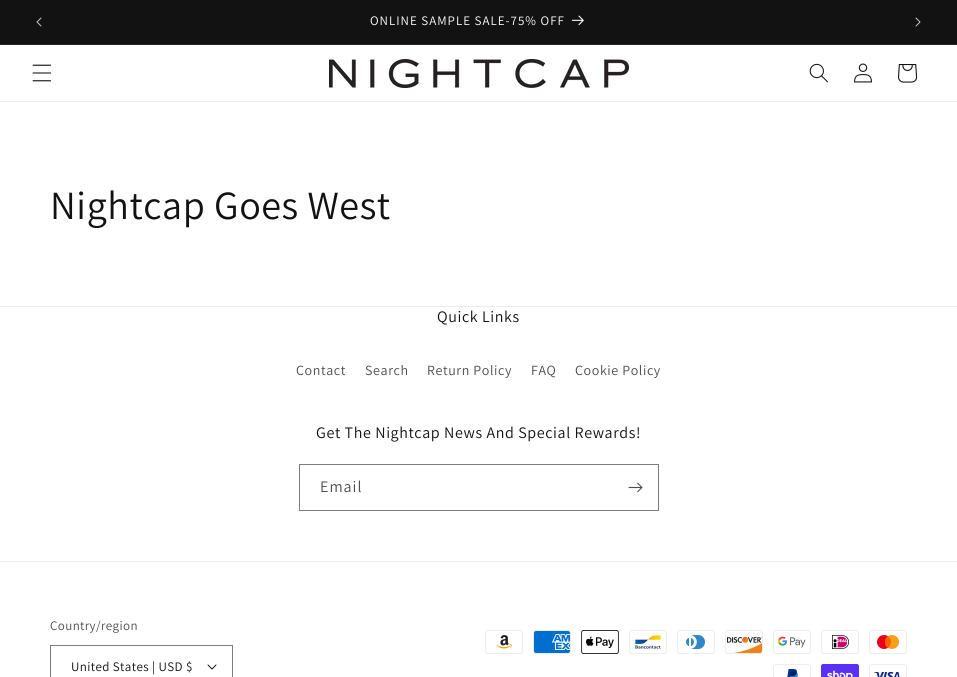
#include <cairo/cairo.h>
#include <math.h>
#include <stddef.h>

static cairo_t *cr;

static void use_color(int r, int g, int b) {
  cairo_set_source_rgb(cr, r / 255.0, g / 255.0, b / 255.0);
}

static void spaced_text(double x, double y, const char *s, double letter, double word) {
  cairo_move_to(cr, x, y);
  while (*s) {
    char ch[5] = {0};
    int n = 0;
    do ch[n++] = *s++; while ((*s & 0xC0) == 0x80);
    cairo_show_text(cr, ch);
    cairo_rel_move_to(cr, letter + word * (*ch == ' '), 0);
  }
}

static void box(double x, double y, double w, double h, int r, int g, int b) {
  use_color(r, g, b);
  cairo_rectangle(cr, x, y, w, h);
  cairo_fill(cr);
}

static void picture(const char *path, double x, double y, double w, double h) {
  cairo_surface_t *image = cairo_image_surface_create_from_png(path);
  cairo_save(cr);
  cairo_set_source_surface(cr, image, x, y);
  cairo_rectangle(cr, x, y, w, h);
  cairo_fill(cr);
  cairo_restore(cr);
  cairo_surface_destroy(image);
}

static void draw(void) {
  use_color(255, 255, 255);
  cairo_paint(cr);
  box(0, 0, 957, 44, 18, 18, 18);
  box(0, 44, 957, 1, 37, 37, 37);
  picture("img_01.png", 36, 17, 6, 10);
  picture("img_02.png", 572, 15, 12, 11);
  picture("img_03.png", 915, 17, 6, 10);
  box(0, 101, 957, 1, 236, 236, 236);
  picture("img_04.png", 32, 64, 20, 18);
  picture("img_05.png", 329, 59, 300, 29);
  picture("img_06.png", 809, 63, 19, 20);
  picture("img_07.png", 854, 63, 18, 20);
  picture("img_08.png", 898, 64, 20, 19);
  box(0, 306, 957, 1, 236, 236, 236);
  cairo_rectangle(cr, 299.5, 464.5, 359, 46);
  use_color(125, 125, 125);
  cairo_set_line_width(cr, 1);
  cairo_stroke(cr);
  picture("img_09.png", 628, 482, 15, 11);
  box(0, 561, 957, 1, 236, 236, 236);
  picture("img_10.png", 207, 664, 10, 6);
  cairo_rectangle(cr, 50.5, 645.5, 182, 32);
  use_color(125, 125, 125);
  cairo_stroke(cr);
  picture("img_11.png", 485, 630, 38, 24);
  picture("img_12.png", 533, 630, 38, 24);
  picture("img_13.png", 581, 630, 38, 24);
  picture("img_14.png", 629, 630, 38, 24);
  picture("img_15.png", 677, 630, 38, 24);
  picture("img_16.png", 725, 630, 38, 24);
  picture("img_17.png", 773, 630, 38, 24);
  picture("img_18.png", 821, 630, 38, 24);
  picture("img_19.png", 869, 630, 38, 24);
  picture("img_20.png", 773, 664, 38, 13);
  picture("img_21.png", 821, 664, 38, 13);
  picture("img_22.png", 869, 664, 38, 13);
  cairo_select_font_face(cr, "Assistant", CAIRO_FONT_SLANT_NORMAL, CAIRO_FONT_WEIGHT_NORMAL);
  cairo_set_font_size(cr, 13);
  use_color(255, 255, 255);
  spaced_text(370, 25, "ONLINE SAMPLE SALE-75% OFF", 1, 0);
  cairo_set_font_size(cr, 40);
  use_color(18, 18, 18);
  spaced_text(50, 219, "Nightcap Goes West", 0.6, 0);
  cairo_set_font_size(cr, 16);
  spaced_text(437, 322, "Quick Links", 0.6, 0);
  cairo_set_font_size(cr, 14);
  use_color(77, 77, 77);
  spaced_text(296, 375, "Contact", 0.6, 0);
  spaced_text(365, 375, "Search", 0.6, 0);
  spaced_text(427, 375, "Return Policy", 0.6, 0);
  spaced_text(531, 375, "FAQ", 0.6, 0);
  spaced_text(575, 375, "Cookie Policy", 0.6, 0);
  cairo_set_font_size(cr, 16);
  use_color(18, 18, 18);
  spaced_text(316, 438, "Get The Nightcap News And Special Rewards!", 0.6, 0);
  use_color(77, 77, 77);
  spaced_text(320, 492, "Email", 1, 0);
  cairo_set_font_size(cr, 13);
  spaced_text(50, 630, "Country/region", 0.4, 0);
  use_color(18, 18, 18);
  spaced_text(71, 671, "United States | USD $", 0.4, 0);
}

int main(void) {
  cairo_surface_t *surface = cairo_image_surface_create(CAIRO_FORMAT_RGB24, 957, 677);
  cr = cairo_create(surface);
  cairo_font_options_t *options = cairo_font_options_create();
  cairo_font_options_set_hint_metrics(options, CAIRO_HINT_METRICS_OFF);
  cairo_font_options_set_hint_style(options, CAIRO_HINT_STYLE_NONE);
  cairo_set_font_options(cr, options);
  cairo_set_miter_limit(cr, 4);
  draw();
  cairo_surface_write_to_png(surface, "out.png");
  cairo_font_options_destroy(options);
  cairo_destroy(cr);
  cairo_surface_destroy(surface);
  return 0;
}
